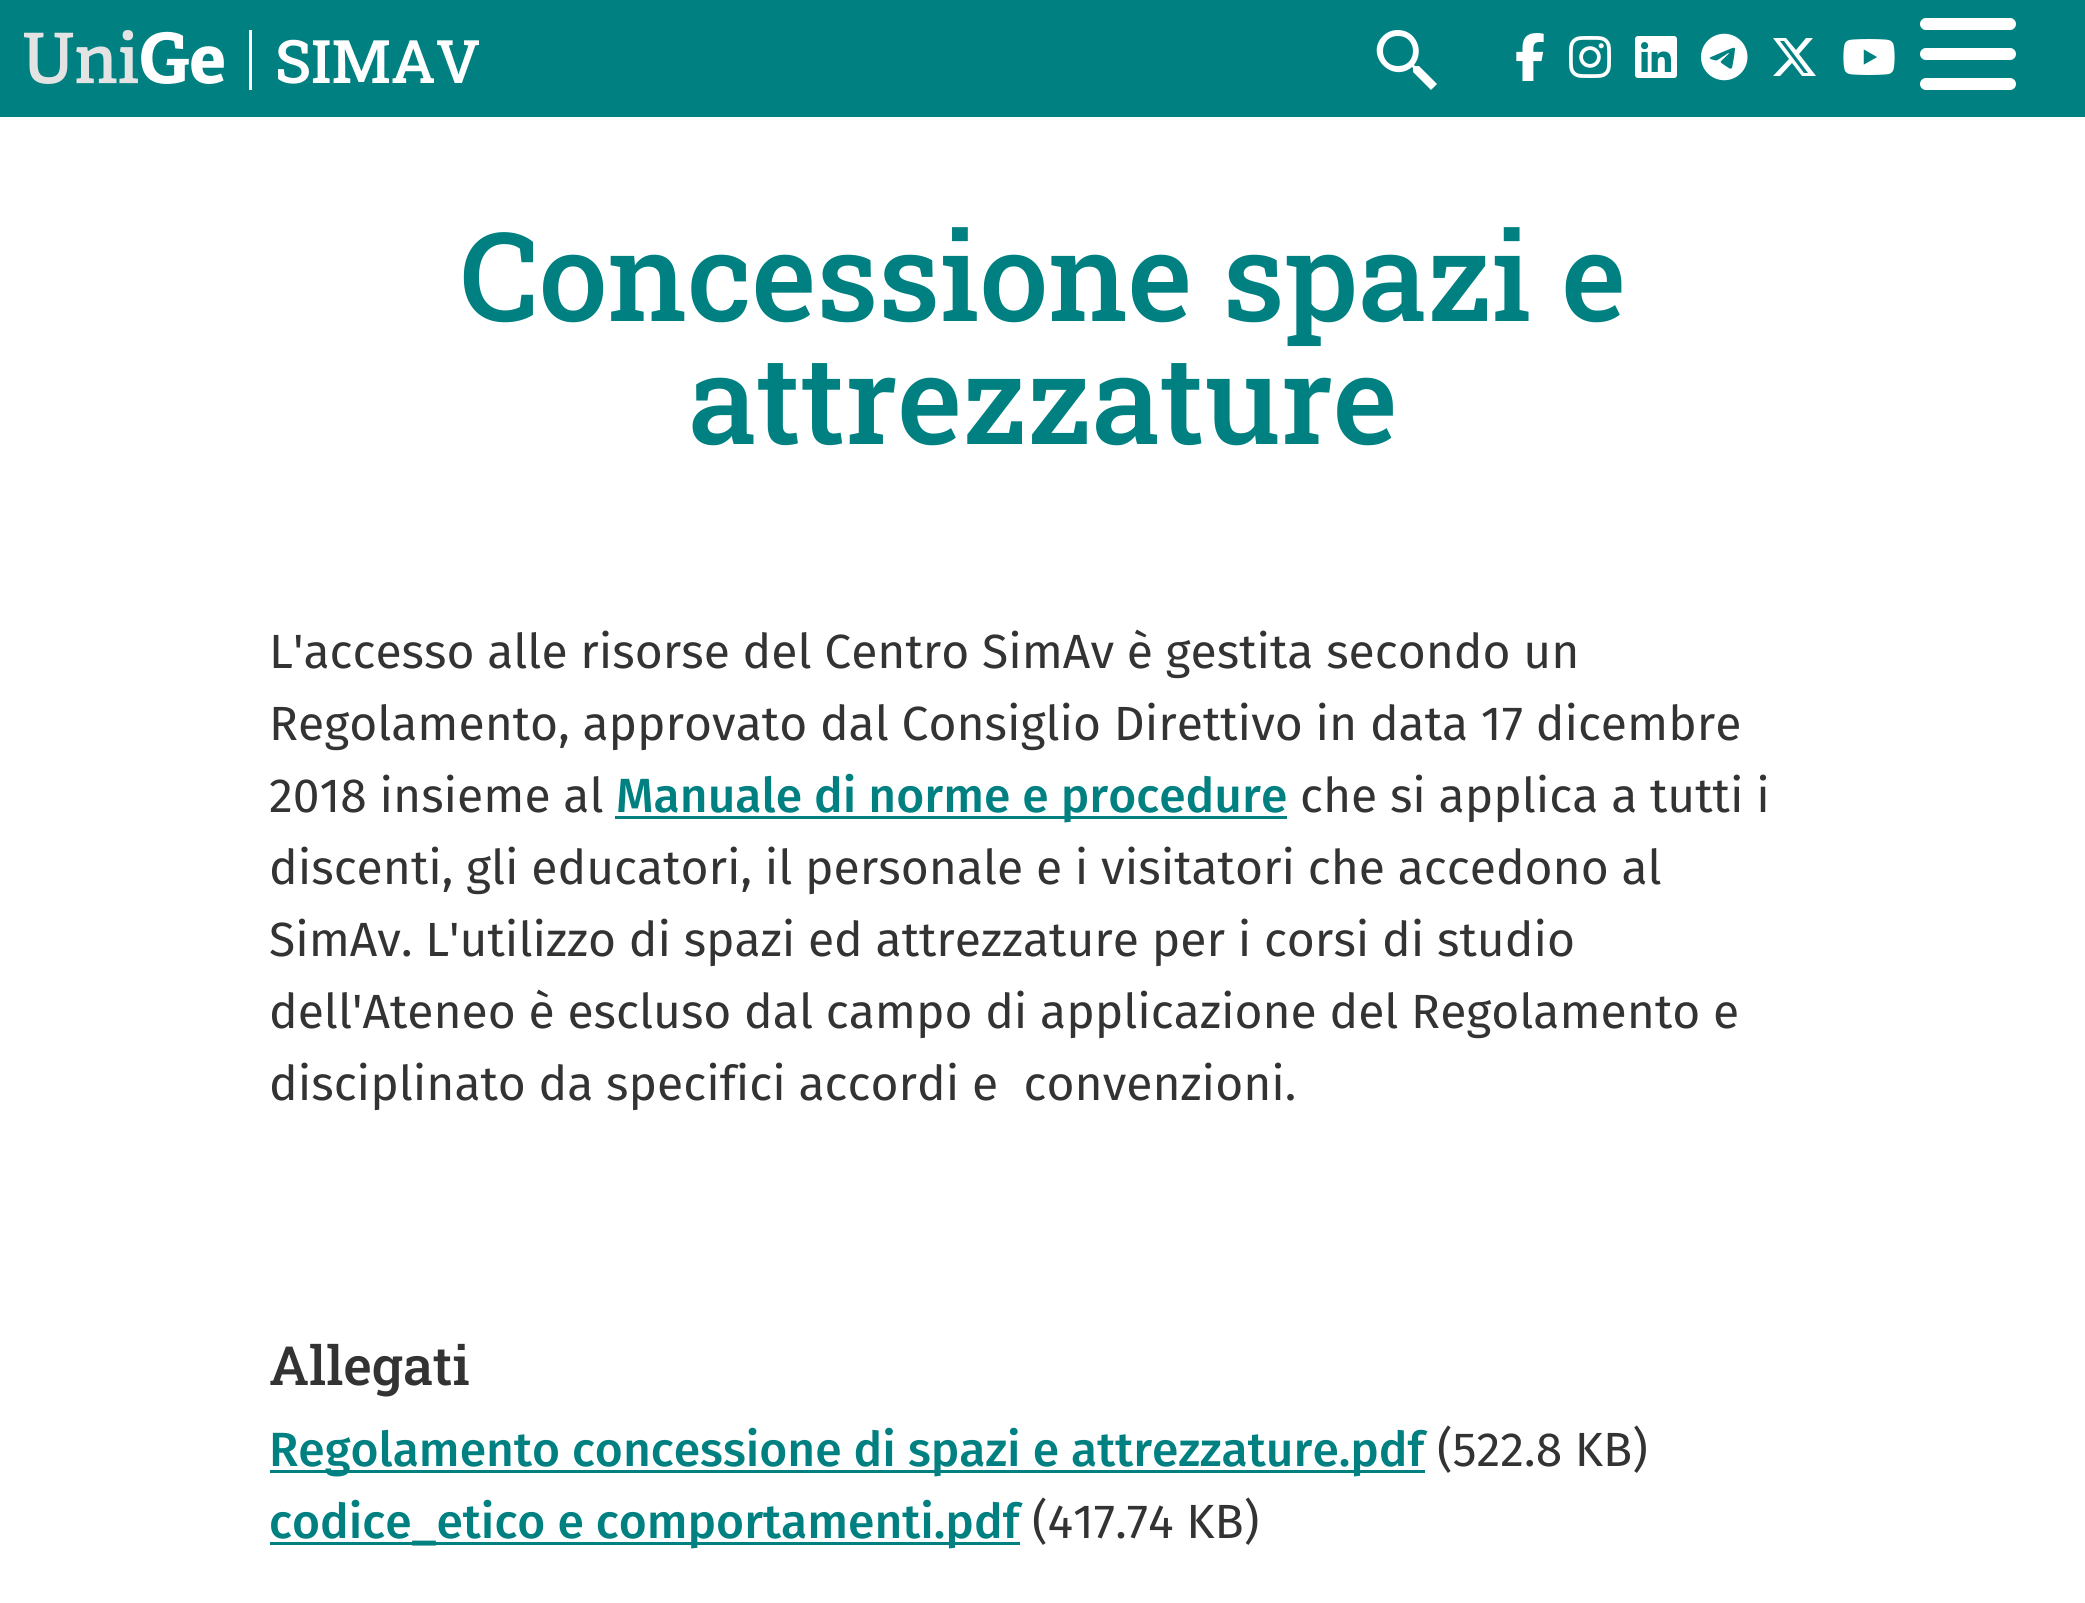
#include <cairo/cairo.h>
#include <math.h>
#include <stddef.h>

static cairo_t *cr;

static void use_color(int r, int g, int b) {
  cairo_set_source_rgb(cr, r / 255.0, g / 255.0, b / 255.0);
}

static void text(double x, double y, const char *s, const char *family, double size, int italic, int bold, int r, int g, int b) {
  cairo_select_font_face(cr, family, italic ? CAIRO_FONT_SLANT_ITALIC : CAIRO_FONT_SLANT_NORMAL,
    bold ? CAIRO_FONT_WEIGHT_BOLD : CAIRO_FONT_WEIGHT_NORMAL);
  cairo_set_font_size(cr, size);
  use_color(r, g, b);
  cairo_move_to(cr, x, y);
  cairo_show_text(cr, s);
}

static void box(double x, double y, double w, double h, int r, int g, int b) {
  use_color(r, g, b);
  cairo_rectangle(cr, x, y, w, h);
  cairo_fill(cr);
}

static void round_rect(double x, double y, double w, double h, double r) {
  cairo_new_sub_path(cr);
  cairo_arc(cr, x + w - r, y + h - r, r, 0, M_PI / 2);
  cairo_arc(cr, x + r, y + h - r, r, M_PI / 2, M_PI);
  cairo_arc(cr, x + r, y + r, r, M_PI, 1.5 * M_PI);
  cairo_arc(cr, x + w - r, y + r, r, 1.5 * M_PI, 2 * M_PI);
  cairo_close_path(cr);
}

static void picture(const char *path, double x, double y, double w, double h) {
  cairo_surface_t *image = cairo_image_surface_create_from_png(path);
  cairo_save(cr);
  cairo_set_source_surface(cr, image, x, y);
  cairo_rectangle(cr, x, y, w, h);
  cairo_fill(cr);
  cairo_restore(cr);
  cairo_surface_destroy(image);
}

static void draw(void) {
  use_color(255, 255, 255);
  cairo_paint(cr);
  box(0, 0, 2085, 117, 0, 128, 128);
  picture("img_01.png", 24, 30, 200, 54);
  box(249, 30, 3, 60, 255, 255, 255);
  cairo_new_path(cr);
  cairo_move_to(cr, 1398, 30);
  cairo_curve_to(cr, 1392, 30, 1387, 32, 1383, 36);
  cairo_curve_to(cr, 1364, 55, 1392, 84, 1412, 67);
  cairo_line_to(cr, 1413, 68);
  cairo_line_to(cr, 1413, 72);
  cairo_line_to(cr, 1431, 90);
  cairo_line_to(cr, 1437, 84);
  cairo_line_to(cr, 1419, 66);
  cairo_line_to(cr, 1415, 66);
  cairo_line_to(cr, 1414, 65);
  cairo_curve_to(cr, 1425, 51, 1416, 30, 1398, 30);
  cairo_close_path(cr);
  cairo_move_to(cr, 1398, 36);
  cairo_curve_to(cr, 1418, 36, 1418, 66, 1398, 66);
  cairo_curve_to(cr, 1378, 66, 1378, 36, 1398, 36);
  cairo_close_path(cr);
  cairo_fill(cr);
  picture("img_02.png", 1516, 33, 28, 48);
  picture("img_03.png", 1569, 36, 42, 42);
  picture("img_04.png", 1635, 36, 42, 42);
  picture("img_05.png", 1701, 33, 47, 48);
  cairo_new_path(cr);
  cairo_move_to(cr, 1806, 38);
  cairo_line_to(cr, 1813, 38);
  cairo_line_to(cr, 1799, 54);
  cairo_line_to(cr, 1816, 76);
  cairo_line_to(cr, 1802, 76);
  cairo_line_to(cr, 1792, 63);
  cairo_line_to(cr, 1780, 76);
  cairo_line_to(cr, 1773, 76);
  cairo_line_to(cr, 1789, 59);
  cairo_line_to(cr, 1773, 38);
  cairo_line_to(cr, 1786, 38);
  cairo_line_to(cr, 1796, 50);
  cairo_close_path(cr);
  cairo_move_to(cr, 1804, 73);
  cairo_line_to(cr, 1808, 73);
  cairo_line_to(cr, 1784, 41);
  cairo_line_to(cr, 1780, 41);
  cairo_close_path(cr);
  cairo_fill(cr);
  picture("img_06.png", 1843, 39, 52, 36);
  round_rect(1920, 18, 96, 12, 6);
  cairo_fill(cr);
  round_rect(1920, 48, 96, 12, 6);
  cairo_fill(cr);
  round_rect(1920, 78, 96, 12, 6);
  cairo_fill(cr);
  box(615, 816, 672, 3, 0, 128, 128);
  box(270, 1470, 1155, 3, 0, 128, 128);
  box(270, 1542, 750, 3, 0, 128, 128);
  text(275, 83, "SIMAV", "Roboto Slab Medium", 60, 0, 0, 255, 255, 255);
  text(460, 321, "Concessione spazi e", "Roboto Slab Medium", 123.25, 0, 0, 0, 128, 128);
  text(688, 444, "attrezzature", "Roboto Slab Medium", 123.25, 0, 0, 0, 128, 128);
  text(269, 668, "L'accesso alle risorse del Centro SimAv è gestita secondo un", "Fira Sans", 48, 0, 0, 51, 51, 51);
  text(269, 740, "Regolamento, approvato dal Consiglio Direttivo in data 17 dicembre", "Fira Sans", 48, 0, 0, 51, 51, 51);
  text(269, 812, "2018 insieme al", "Fira Sans", 48, 0, 0, 51, 51, 51);
  text(616, 812, "Manuale di norme e procedure", "Fira Sans Medium", 48, 0, 0, 0, 128, 128);
  text(1300, 812, "che si applica a tutti i", "Fira Sans", 48, 0, 0, 51, 51, 51);
  text(269, 884, "discenti, gli educatori, il personale e i visitatori che accedono al", "Fira Sans", 48, 0, 0, 51, 51, 51);
  text(269, 956, "SimAv. L'utilizzo di spazi ed attrezzature per i corsi di studio", "Fira Sans", 48, 0, 0, 51, 51, 51);
  text(269, 1028, "dell'Ateneo è escluso dal campo di applicazione del Regolamento e", "Fira Sans", 48, 0, 0, 51, 51, 51);
  text(269, 1100, "disciplinato da specifici accordi e  convenzioni.", "Fira Sans", 48, 0, 0, 51, 51, 51);
  text(269, 1385, "Allegati", "Roboto Slab Medium", 54, 0, 0, 51, 51, 51);
  text(269, 1466, "Regolamento concessione di spazi e attrezzature.pdf", "Fira Sans Medium", 48, 0, 0, 0, 128, 128);
  text(1437, 1466, "(522.8 KB)", "Fira Sans", 48, 0, 0, 51, 51, 51);
  text(269, 1538, "codice_etico e comportamenti.pdf", "Fira Sans Medium", 48, 0, 0, 0, 128, 128);
  text(1032, 1538, "(417.74 KB)", "Fira Sans", 48, 0, 0, 51, 51, 51);
}

int main(void) {
  cairo_surface_t *surface = cairo_image_surface_create(CAIRO_FORMAT_RGB24, 2085, 1603);
  cr = cairo_create(surface);
  cairo_font_options_t *options = cairo_font_options_create();
  cairo_font_options_set_hint_metrics(options, CAIRO_HINT_METRICS_OFF);
  cairo_font_options_set_hint_style(options, CAIRO_HINT_STYLE_NONE);
  cairo_set_font_options(cr, options);
  cairo_set_miter_limit(cr, 4);
  draw();
  cairo_surface_write_to_png(surface, "out.png");
  cairo_font_options_destroy(options);
  cairo_destroy(cr);
  cairo_surface_destroy(surface);
  return 0;
}
